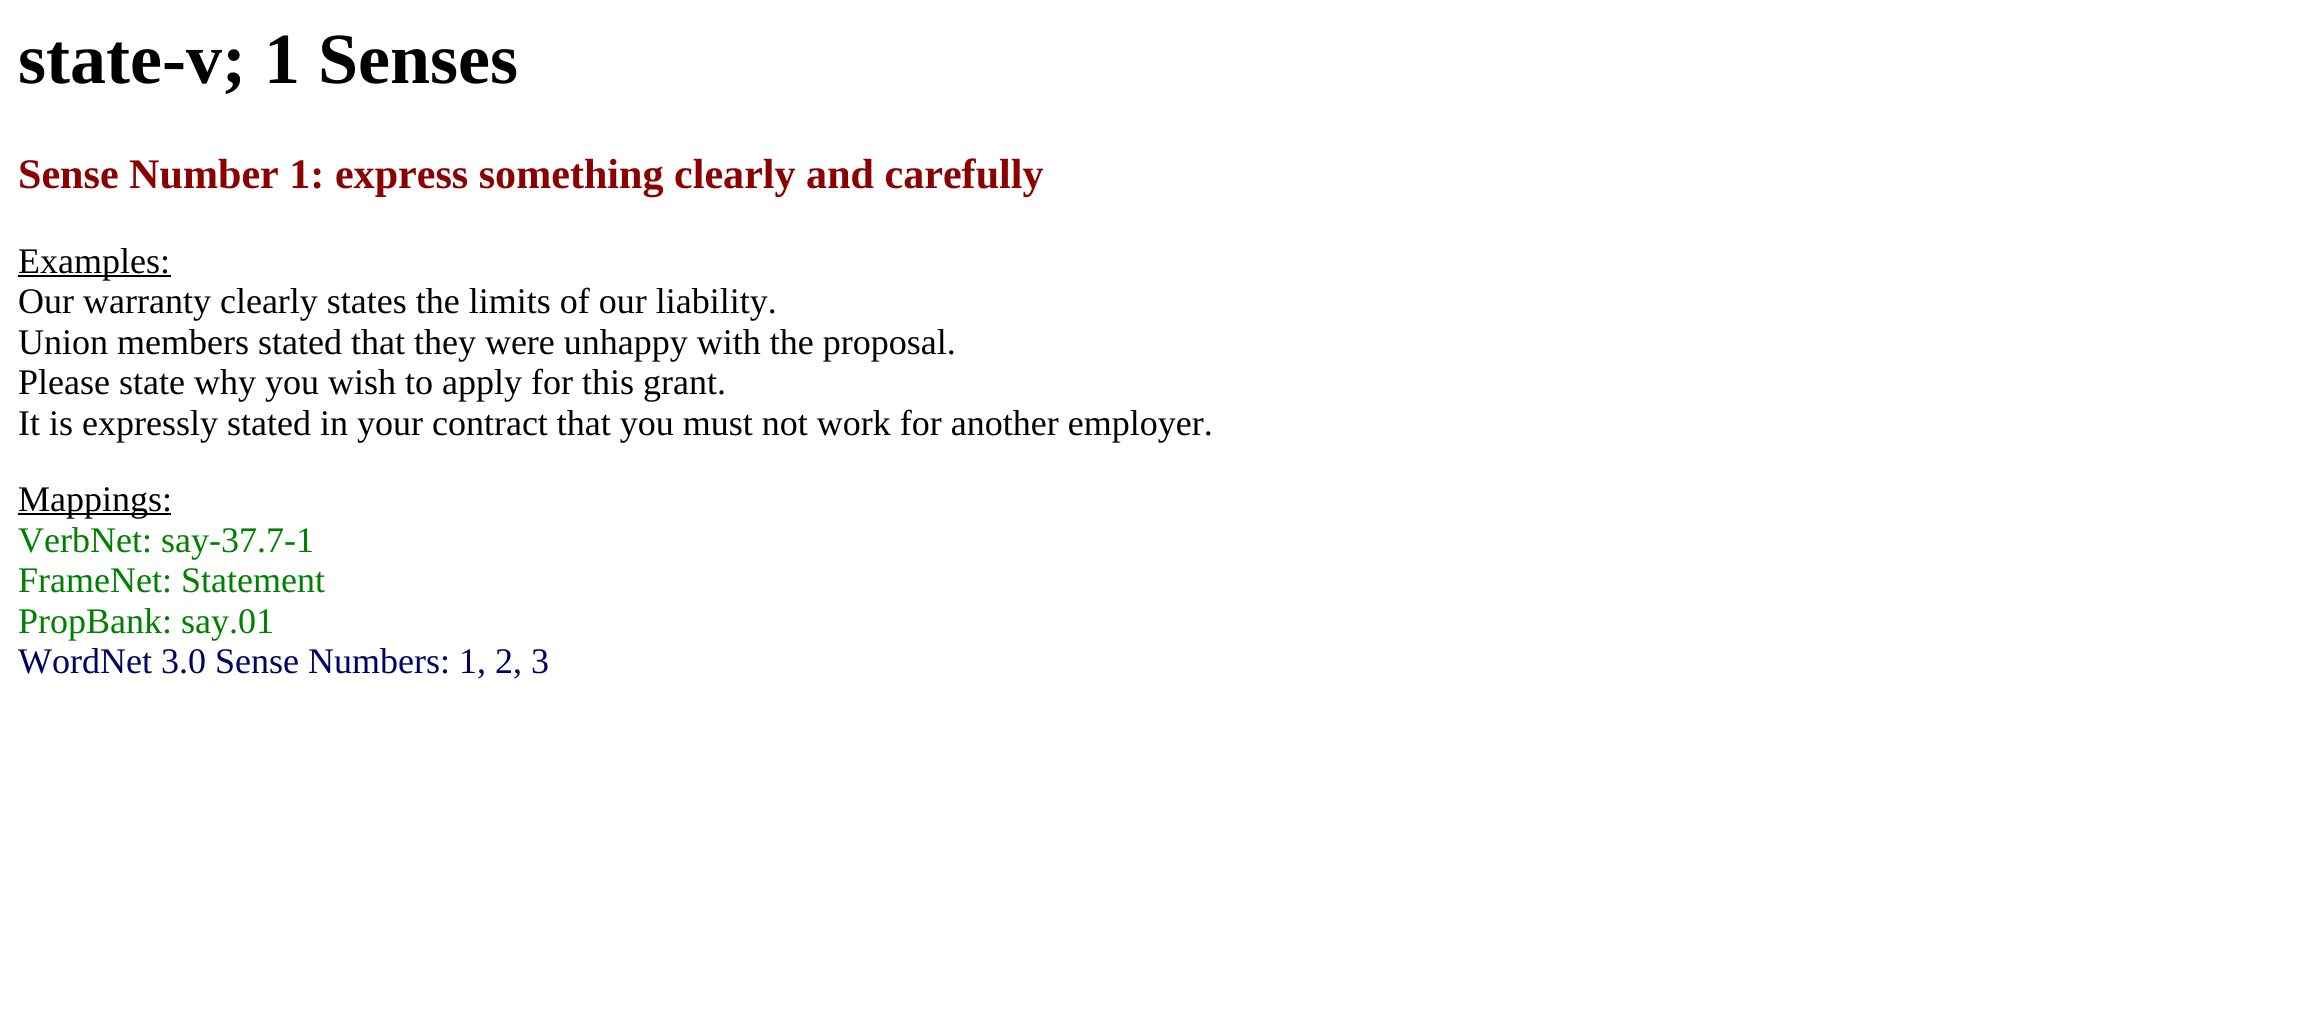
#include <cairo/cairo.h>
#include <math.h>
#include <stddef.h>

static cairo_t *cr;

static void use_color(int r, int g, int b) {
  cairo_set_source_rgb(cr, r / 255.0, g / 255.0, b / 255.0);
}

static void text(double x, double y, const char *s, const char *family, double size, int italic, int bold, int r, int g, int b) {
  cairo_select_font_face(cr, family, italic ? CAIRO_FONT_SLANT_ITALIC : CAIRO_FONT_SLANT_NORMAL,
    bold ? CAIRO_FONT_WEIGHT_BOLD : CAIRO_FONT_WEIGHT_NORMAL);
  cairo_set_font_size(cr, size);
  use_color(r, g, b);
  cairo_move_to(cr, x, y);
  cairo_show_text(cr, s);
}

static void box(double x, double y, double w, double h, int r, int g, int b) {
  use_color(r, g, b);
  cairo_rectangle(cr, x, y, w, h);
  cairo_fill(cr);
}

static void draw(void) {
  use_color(255, 255, 255);
  cairo_paint(cr);
  box(18, 275, 153, 2, 0, 0, 0);
  box(18, 513, 153, 2, 0, 0, 0);
  text(18, 83, "state-v; 1 Senses", "Liberation Serif", 72, 0, 1, 0, 0, 0);
  text(18, 188, "Sense Number 1: express something clearly and carefully", "Liberation Serif", 42.1, 0, 1, 139, 0, 0);
  text(18, 273, "Examples:", "Liberation Serif", 36, 0, 0, 0, 0, 0);
  text(18, 313, "Our warranty clearly states the limits of our liability.", "Liberation Serif", 36, 0, 0, 0, 0, 0);
  text(18, 354, "Union members stated that they were unhappy with the proposal.", "Liberation Serif", 36, 0, 0, 0, 0, 0);
  text(18, 394, "Please state why you wish to apply for this grant.", "Liberation Serif", 36, 0, 0, 0, 0, 0);
  text(18, 435, "It is expressly stated in your contract that you must not work for another employer.", "Liberation Serif", 36, 0, 0, 0, 0, 0);
  text(18, 511, "Mappings:", "Liberation Serif", 36, 0, 0, 0, 0, 0);
  text(18, 552, "VerbNet: say-37.7-1", "Liberation Serif", 36, 0, 0, 0, 128, 0);
  text(18, 592, "FrameNet: Statement", "Liberation Serif", 36, 0, 0, 0, 128, 0);
  text(18, 633, "PropBank: say.01", "Liberation Serif", 36, 0, 0, 0, 128, 0);
  text(18, 673, "WordNet 3.0 Sense Numbers: 1, 2, 3", "Liberation Serif", 36, 0, 0, 0, 0, 102);
}

int main(void) {
  cairo_surface_t *surface = cairo_image_surface_create(CAIRO_FORMAT_RGB24, 2308, 1017);
  cr = cairo_create(surface);
  cairo_font_options_t *options = cairo_font_options_create();
  cairo_font_options_set_hint_metrics(options, CAIRO_HINT_METRICS_OFF);
  cairo_font_options_set_hint_style(options, CAIRO_HINT_STYLE_NONE);
  cairo_set_font_options(cr, options);
  cairo_set_miter_limit(cr, 4);
  draw();
  cairo_surface_write_to_png(surface, "out.png");
  cairo_font_options_destroy(options);
  cairo_destroy(cr);
  cairo_surface_destroy(surface);
  return 0;
}
